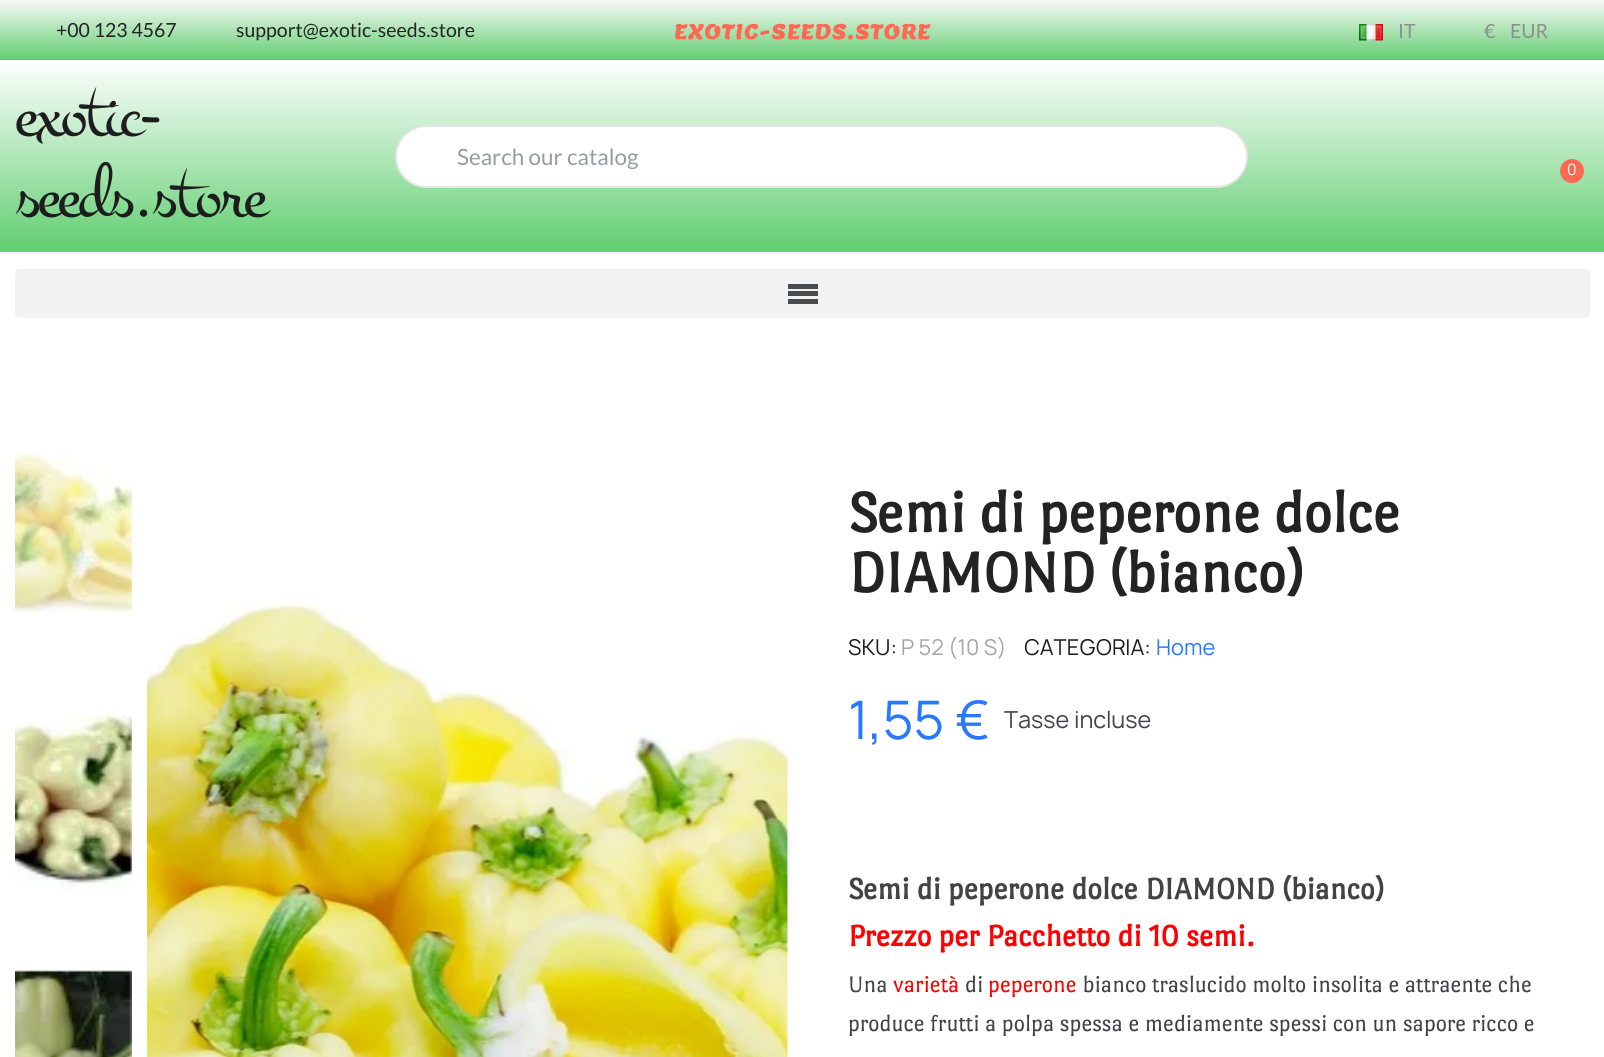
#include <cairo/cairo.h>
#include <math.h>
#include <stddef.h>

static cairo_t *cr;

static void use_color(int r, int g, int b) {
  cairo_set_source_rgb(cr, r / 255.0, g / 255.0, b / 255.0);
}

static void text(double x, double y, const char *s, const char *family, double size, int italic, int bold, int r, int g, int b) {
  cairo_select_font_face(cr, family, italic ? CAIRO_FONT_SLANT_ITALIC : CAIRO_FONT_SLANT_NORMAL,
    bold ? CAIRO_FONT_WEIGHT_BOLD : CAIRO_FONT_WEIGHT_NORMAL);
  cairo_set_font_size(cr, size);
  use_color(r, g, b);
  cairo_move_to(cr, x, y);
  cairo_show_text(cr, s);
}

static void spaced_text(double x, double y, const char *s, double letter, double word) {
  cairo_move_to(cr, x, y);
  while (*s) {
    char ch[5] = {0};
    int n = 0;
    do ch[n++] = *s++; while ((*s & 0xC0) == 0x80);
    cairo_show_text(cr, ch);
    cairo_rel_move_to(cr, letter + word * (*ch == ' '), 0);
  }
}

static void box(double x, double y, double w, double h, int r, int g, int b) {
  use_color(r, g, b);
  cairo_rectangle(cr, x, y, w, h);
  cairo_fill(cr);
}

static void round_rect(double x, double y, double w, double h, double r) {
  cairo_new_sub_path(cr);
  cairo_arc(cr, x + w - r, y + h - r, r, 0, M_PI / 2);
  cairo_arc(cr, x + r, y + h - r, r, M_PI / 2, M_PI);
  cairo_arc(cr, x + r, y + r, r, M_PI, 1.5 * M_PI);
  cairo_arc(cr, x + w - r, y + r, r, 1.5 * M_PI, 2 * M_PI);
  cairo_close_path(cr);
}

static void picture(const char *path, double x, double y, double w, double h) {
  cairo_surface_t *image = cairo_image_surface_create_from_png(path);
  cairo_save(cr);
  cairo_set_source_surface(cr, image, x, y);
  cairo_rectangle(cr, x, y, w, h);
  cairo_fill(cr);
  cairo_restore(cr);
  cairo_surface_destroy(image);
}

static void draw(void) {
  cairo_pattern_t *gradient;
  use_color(255, 255, 255);
  cairo_paint(cr);
  gradient = cairo_pattern_create_linear(803, 0, 803, 60);
  cairo_pattern_add_color_stop_rgba(gradient, 0, 0.973, 0.973, 0.973, 1);
  cairo_pattern_add_color_stop_rgba(gradient, 1, 0.38, 0.808, 0.439, 1);
  cairo_set_source(cr, gradient);
  cairo_pattern_destroy(gradient);
  cairo_rectangle(cr, 0, 0, 1604, 60);
  cairo_fill(cr);
  picture("img_01.png", 1359, 24, 24, 17);
  gradient = cairo_pattern_create_linear(803, 60, 803, 252);
  cairo_pattern_add_color_stop_rgba(gradient, 0, 1, 1, 1, 1);
  cairo_pattern_add_color_stop_rgba(gradient, 1, 0.38, 0.808, 0.439, 1);
  cairo_set_source(cr, gradient);
  cairo_pattern_destroy(gradient);
  cairo_rectangle(cr, 0, 63, 1604, 189);
  cairo_fill(cr);
  box(0, 252, 1604, 2, 243, 243, 243);
  use_color(255, 255, 255);
  round_rect(396, 126, 851, 61, 30.5);
  cairo_fill_preserve(cr);
  use_color(229, 229, 229);
  cairo_stroke(cr);
  use_color(255, 104, 82);
  cairo_arc(cr, 1572, 171, 12, 0, 2 * M_PI);
  cairo_fill(cr);
  use_color(242, 242, 242);
  round_rect(15, 269, 1575, 49, 5);
  cairo_fill(cr);
  box(788, 291, 30, 5, 73, 76, 79);
  box(788, 284, 30, 5, 73, 76, 79);
  box(788, 299, 30, 5, 73, 76, 79);
  picture("img_02.png", 15, 448, 117, 167);
  picture("img_03.png", 15, 714, 117, 176);
  picture("img_04.png", 15, 969, 117, 88);
  picture("img_05.png", 147, 601, 641, 456);
  text(56, 37, "+00 123 4567", "Lato", 19.5, 0, 0, 35, 35, 35);
  text(236, 37, "support@exotic-seeds.store", "Lato", 19.5, 0, 0, 35, 35, 35);
  cairo_select_font_face(cr, "Lemon", CAIRO_FONT_SLANT_NORMAL, CAIRO_FONT_WEIGHT_NORMAL);
  cairo_set_font_size(cr, 21);
  use_color(255, 104, 82);
  spaced_text(674, 39, "EXOTIC-SEEDS.STORE", 0.9, 0);
  text(1398, 38, "IT", "Lato", 19.5, 0, 0, 142, 142, 142);
  text(1484, 38, "€", "Lato", 19.5, 0, 0, 142, 142, 142);
  text(1510, 38, "EUR", "Lato", 19.5, 0, 0, 142, 142, 142);
  cairo_select_font_face(cr, "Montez", CAIRO_FONT_SLANT_NORMAL, CAIRO_FONT_WEIGHT_NORMAL);
  cairo_set_font_size(cr, 81);
  use_color(29, 29, 31);
  spaced_text(15, 135, "exotic-", -3.25, 0);
  spaced_text(15, 216, "seeds.store", -3.25, 0);
  text(457, 165, "Search our catalog", "Lato", 22.5, 0, 0, 153, 155, 157);
  text(1567, 175, "0", "Manrope", 15, 0, 0, 255, 255, 255);
  text(848, 532, "Semi di peperone dolce", "Port Lligat Sans", 60, 0, 1, 35, 35, 35);
  text(848, 592, "DIAMOND (bianco)", "Port Lligat Sans", 60, 0, 1, 35, 35, 35);
  text(848, 655, "SKU:", "Manrope", 21, 0, 0, 29, 29, 31);
  text(901, 655, "P 52 (10 S)", "Manrope", 21, 0, 0, 165, 165, 165);
  text(1024, 655, "CATEGORIA:", "Manrope", 21, 0, 0, 29, 29, 31);
  text(1156, 655, "Home", "Manrope", 21, 0, 0, 40, 121, 254);
  text(848, 739, "1,55 €", "Manrope", 51, 0, 0, 40, 121, 254);
  text(1004, 728, "Tasse incluse", "Manrope", 22.5, 0, 0, 67, 67, 71);
  text(848, 899, "Semi di peperone dolce DIAMOND (bianco)", "Port Lligat Sans", 31.5, 0, 1, 67, 67, 71);
  text(848, 946, "Prezzo per Pacchetto di 10 semi.", "Port Lligat Sans", 31.5, 0, 1, 255, 0, 0);
  text(848, 992, "Una", "Port Lligat Sans", 24, 0, 0, 67, 67, 71);
  text(893, 992, "varietà", "Port Lligat Sans", 24, 0, 0, 255, 0, 0);
  text(965, 992, "di", "Port Lligat Sans", 24, 0, 0, 67, 67, 71);
  text(988, 992, "peperone", "Port Lligat Sans", 24, 0, 0, 255, 0, 0);
  text(1083, 992, "bianco traslucido molto insolita e attraente che", "Port Lligat Sans", 24, 0, 0, 67, 67, 71);
  text(848, 1031, "produce frutti a polpa spessa e mediamente spessi con un sapore ricco e", "Port Lligat Sans", 24, 0, 0, 67, 67, 71);
}

int main(void) {
  cairo_surface_t *surface = cairo_image_surface_create(CAIRO_FORMAT_RGB24, 1604, 1057);
  cr = cairo_create(surface);
  cairo_font_options_t *options = cairo_font_options_create();
  cairo_font_options_set_hint_metrics(options, CAIRO_HINT_METRICS_OFF);
  cairo_font_options_set_hint_style(options, CAIRO_HINT_STYLE_NONE);
  cairo_set_font_options(cr, options);
  cairo_set_miter_limit(cr, 4);
  draw();
  cairo_surface_write_to_png(surface, "out.png");
  cairo_font_options_destroy(options);
  cairo_destroy(cr);
  cairo_surface_destroy(surface);
  return 0;
}
